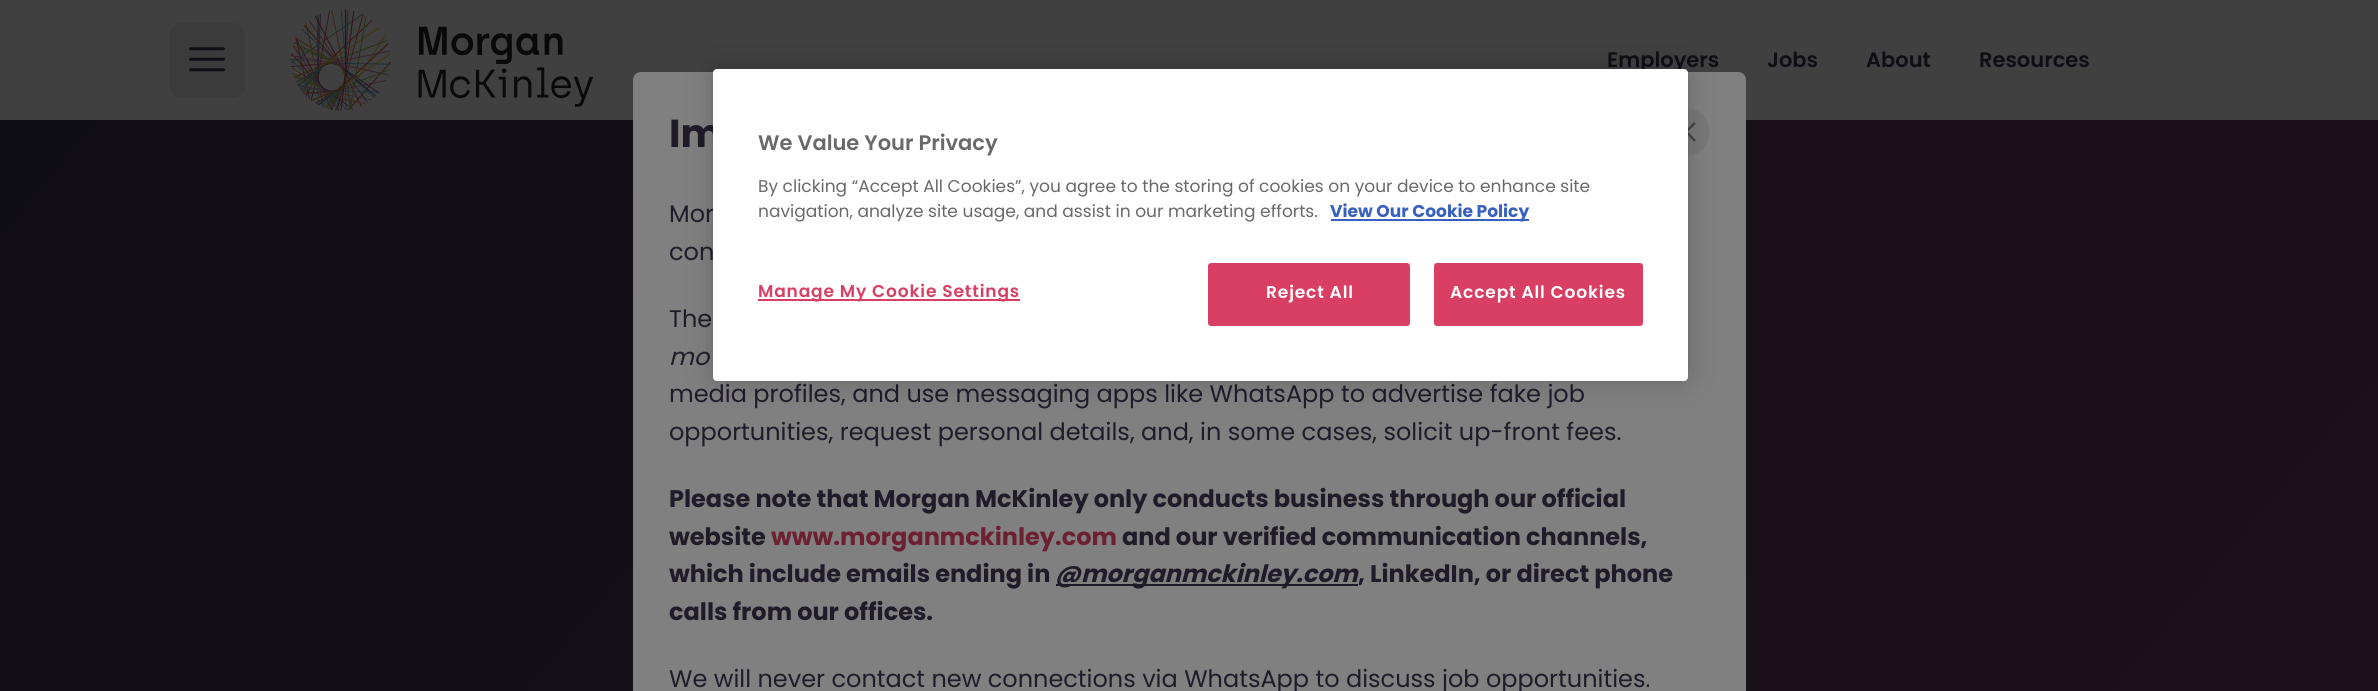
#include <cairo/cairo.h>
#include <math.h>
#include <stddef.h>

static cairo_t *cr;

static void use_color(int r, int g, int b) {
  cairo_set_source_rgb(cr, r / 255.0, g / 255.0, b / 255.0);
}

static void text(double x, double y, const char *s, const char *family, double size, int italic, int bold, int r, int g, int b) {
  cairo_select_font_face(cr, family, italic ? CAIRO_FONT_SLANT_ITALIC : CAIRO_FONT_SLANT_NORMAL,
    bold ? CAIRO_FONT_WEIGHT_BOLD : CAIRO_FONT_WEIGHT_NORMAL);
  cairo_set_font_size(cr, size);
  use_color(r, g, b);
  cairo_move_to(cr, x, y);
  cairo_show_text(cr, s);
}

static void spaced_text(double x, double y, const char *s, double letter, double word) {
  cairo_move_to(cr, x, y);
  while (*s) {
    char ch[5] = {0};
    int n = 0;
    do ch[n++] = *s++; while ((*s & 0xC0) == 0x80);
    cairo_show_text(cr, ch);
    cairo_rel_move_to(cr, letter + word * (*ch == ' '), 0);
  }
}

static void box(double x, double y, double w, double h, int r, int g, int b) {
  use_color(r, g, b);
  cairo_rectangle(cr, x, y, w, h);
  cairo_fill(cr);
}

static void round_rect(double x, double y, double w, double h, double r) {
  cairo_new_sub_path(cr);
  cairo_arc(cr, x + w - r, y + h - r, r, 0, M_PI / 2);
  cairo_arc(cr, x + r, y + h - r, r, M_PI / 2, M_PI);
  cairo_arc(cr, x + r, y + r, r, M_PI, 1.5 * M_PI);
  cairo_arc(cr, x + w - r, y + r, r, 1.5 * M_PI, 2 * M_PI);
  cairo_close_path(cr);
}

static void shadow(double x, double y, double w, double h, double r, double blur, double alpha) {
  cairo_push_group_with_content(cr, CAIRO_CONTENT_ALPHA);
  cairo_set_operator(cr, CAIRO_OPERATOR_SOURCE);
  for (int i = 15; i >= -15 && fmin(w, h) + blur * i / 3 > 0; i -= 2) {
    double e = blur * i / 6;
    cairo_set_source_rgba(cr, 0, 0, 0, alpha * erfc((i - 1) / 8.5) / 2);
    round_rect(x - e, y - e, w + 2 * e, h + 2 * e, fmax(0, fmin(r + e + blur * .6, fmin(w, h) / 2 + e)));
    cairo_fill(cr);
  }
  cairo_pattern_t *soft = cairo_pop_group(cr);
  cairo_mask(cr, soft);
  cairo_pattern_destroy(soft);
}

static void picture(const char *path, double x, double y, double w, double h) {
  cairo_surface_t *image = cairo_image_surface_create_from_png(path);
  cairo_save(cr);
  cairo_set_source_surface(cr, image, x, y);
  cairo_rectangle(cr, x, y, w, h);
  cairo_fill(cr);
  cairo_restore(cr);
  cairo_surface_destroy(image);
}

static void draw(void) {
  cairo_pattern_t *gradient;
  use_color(64, 64, 64);
  cairo_paint(cr);
  use_color(59, 59, 59);
  round_rect(170, 23, 75, 75, 12);
  cairo_fill(cr);
  picture("img_01.png", 189, 47, 36, 25);
  picture("img_02.png", 290, 9, 304, 102);
  gradient = cairo_pattern_create_linear(325, -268, 2054, 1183);
  cairo_pattern_add_color_stop_rgba(gradient, 0, 0.063, 0.055, 0.082, 1);
  cairo_pattern_add_color_stop_rgba(gradient, 1, 0.114, 0.063, 0.106, 1);
  cairo_set_source(cr, gradient);
  cairo_pattern_destroy(gradient);
  cairo_rectangle(cr, 0, 120, 2378, 571);
  cairo_fill(cr);
  text(1607, 67, "Employers", "Poppins SemiBold", 21, 0, 0, 16, 14, 21);
  text(1767, 67, "Jobs", "Poppins SemiBold", 21, 0, 0, 16, 14, 21);
  text(1866, 67, "About", "Poppins SemiBold", 21, 0, 0, 16, 14, 21);
  text(1979, 67, "Resources", "Poppins SemiBold", 21, 0, 0, 16, 14, 21);
  use_color(128, 128, 128);
  cairo_new_path(cr);
  cairo_move_to(cr, 641, 72);
  cairo_line_to(cr, 1738, 72);
  cairo_curve_to(cr, 1742.5, 72, 1746, 75.5, 1746, 80);
  cairo_line_to(cr, 1746, 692);
  cairo_line_to(cr, 633, 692);
  cairo_line_to(cr, 633, 80);
  cairo_curve_to(cr, 633, 75.5, 636.5, 72, 641, 72);
  cairo_close_path(cr);
  cairo_fill(cr);
  text(669, 147, "Im", "Poppins", 39, 0, 1, 31, 27, 41);
  use_color(120, 120, 120);
  cairo_new_path(cr);
  cairo_arc(cr, 1686, 132, 24, 0, 2 * M_PI);
  cairo_fill(cr);
  picture("img_03.png", 1688, 122, 8, 20);
  text(669, 222, "Mor", "Poppins", 24, 0, 0, 31, 27, 41);
  text(669, 260, "con", "Poppins", 24, 0, 0, 31, 27, 41);
  text(669, 327, "The", "Poppins", 24, 0, 0, 31, 27, 41);
  text(669, 365, "mo", "Poppins", 24, 1, 0, 31, 27, 41);
  text(669, 402, "media profiles, and use messaging apps like WhatsApp to advertise fake job", "Poppins", 24, 0, 0, 31, 27, 41);
  text(669, 440, "opportunities, request personal details, and, in some cases, solicit up-front fees.", "Poppins", 24, 0, 0, 31, 27, 41);
  text(669, 507, "Please note that Morgan McKinley only conducts business through our official", "Poppins", 24, 0, 1, 31, 27, 41);
  text(669, 545, "website", "Poppins", 24, 0, 1, 31, 27, 41);
  text(771, 545, "www.morganmckinley.com", "Poppins", 24, 0, 1, 108, 32, 50);
  text(1122, 545, "and our verified communication channels,", "Poppins", 24, 0, 1, 31, 27, 41);
  text(669, 582, "which include emails ending in", "Poppins", 24, 0, 1, 31, 27, 41);
  box(1056, 584, 302, 2, 31, 27, 41);
  text(1055, 582, "@morganmckinley.com", "Poppins", 24, 1, 1, 31, 27, 41);
  text(1358, 582, ", LinkedIn, or direct phone", "Poppins", 24, 0, 1, 31, 27, 41);
  text(669, 620, "calls from our offices.", "Poppins", 24, 0, 1, 31, 27, 41);
  text(669, 687, "We will never contact new connections via WhatsApp to discuss job opportunities.", "Poppins", 24, 0, 0, 31, 27, 41);
  use_color(0, 0, 0);
  shadow(713, 69, 975, 312, 4, 13.5, 0.2);
  use_color(255, 255, 255);
  round_rect(713, 69, 975, 312, 4);
  cairo_fill(cr);
  text(758, 150, "We Value Your Privacy", "Poppins SemiBold", 21, 0, 0, 105, 105, 105);
  text(758, 192, "By clicking “Accept All Cookies”, you agree to the storing of cookies on your device to enhance site", "Poppins", 17.05, 0, 0, 105, 105, 105);
  text(758, 217, "navigation, analyze site usage, and assist in our marketing efforts.", "Poppins", 17.05, 0, 0, 105, 105, 105);
  box(1331, 219, 198, 2, 56, 96, 190);
  text(1330, 217, "View Our Cookie Policy", "Poppins", 17.05, 0, 1, 56, 96, 190);
  box(758, 299, 262, 2, 216, 63, 99);
  cairo_select_font_face(cr, "Poppins SemiBold", CAIRO_FONT_SLANT_NORMAL, CAIRO_FONT_WEIGHT_NORMAL);
  spaced_text(758, 297, "Manage My Cookie Settings", 0.85, 0);
  round_rect(1209, 264, 200, 61, 2);
  cairo_fill_preserve(cr);
  cairo_stroke(cr);
  use_color(255, 255, 255);
  spaced_text(1266, 298, "Reject All", 0.85, 0);
  use_color(216, 63, 99);
  round_rect(1435, 264, 207, 61, 2);
  cairo_fill_preserve(cr);
  cairo_stroke(cr);
  use_color(255, 255, 255);
  spaced_text(1450, 298, "Accept All Cookies", 0.85, 0);
}

int main(void) {
  cairo_surface_t *surface = cairo_image_surface_create(CAIRO_FORMAT_RGB24, 2378, 691);
  cr = cairo_create(surface);
  cairo_font_options_t *options = cairo_font_options_create();
  cairo_font_options_set_hint_metrics(options, CAIRO_HINT_METRICS_OFF);
  cairo_font_options_set_hint_style(options, CAIRO_HINT_STYLE_NONE);
  cairo_set_font_options(cr, options);
  cairo_set_miter_limit(cr, 4);
  draw();
  cairo_surface_write_to_png(surface, "out.png");
  cairo_font_options_destroy(options);
  cairo_destroy(cr);
  cairo_surface_destroy(surface);
  return 0;
}
